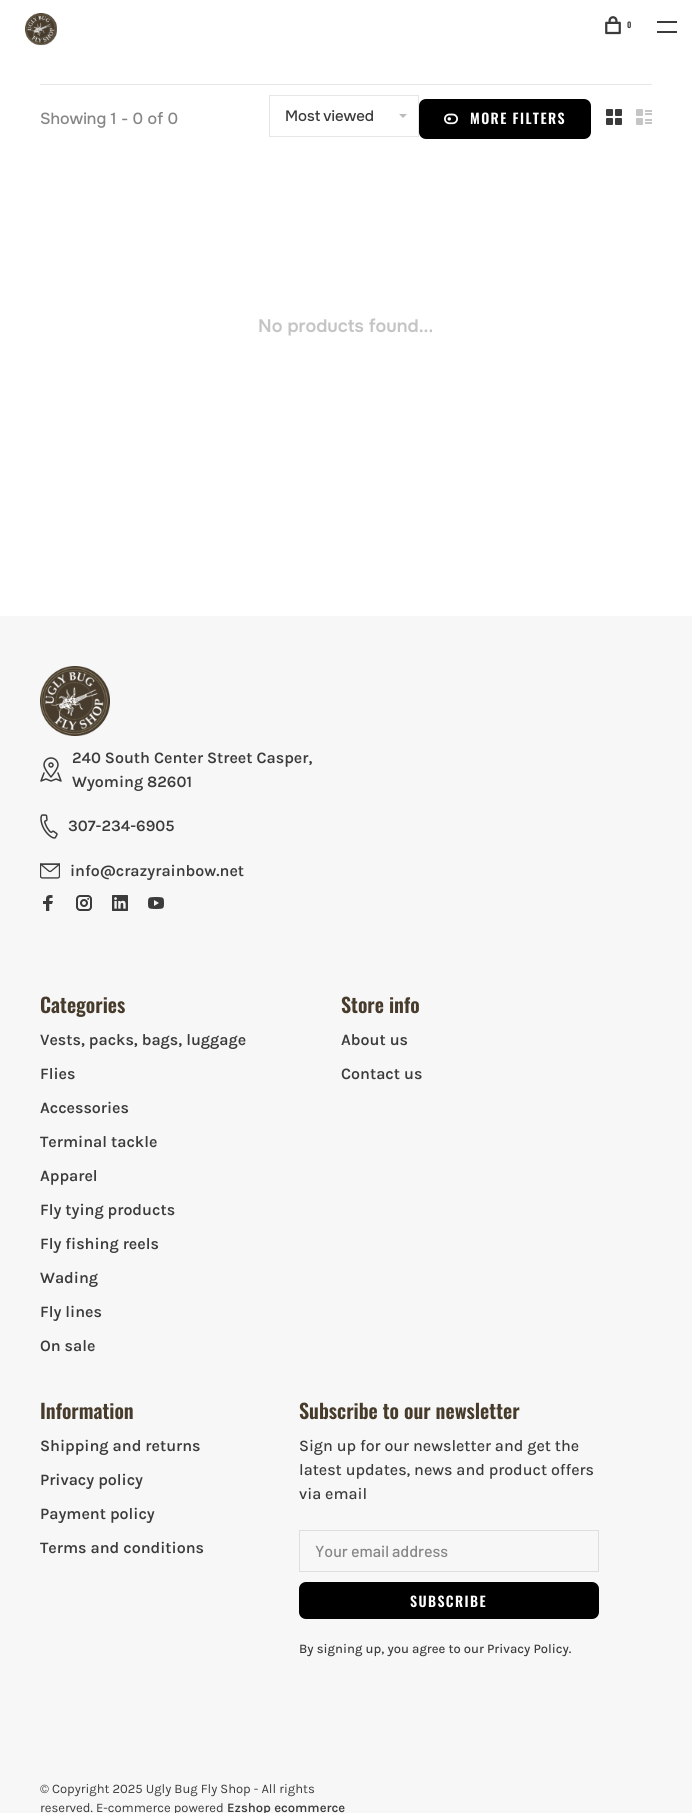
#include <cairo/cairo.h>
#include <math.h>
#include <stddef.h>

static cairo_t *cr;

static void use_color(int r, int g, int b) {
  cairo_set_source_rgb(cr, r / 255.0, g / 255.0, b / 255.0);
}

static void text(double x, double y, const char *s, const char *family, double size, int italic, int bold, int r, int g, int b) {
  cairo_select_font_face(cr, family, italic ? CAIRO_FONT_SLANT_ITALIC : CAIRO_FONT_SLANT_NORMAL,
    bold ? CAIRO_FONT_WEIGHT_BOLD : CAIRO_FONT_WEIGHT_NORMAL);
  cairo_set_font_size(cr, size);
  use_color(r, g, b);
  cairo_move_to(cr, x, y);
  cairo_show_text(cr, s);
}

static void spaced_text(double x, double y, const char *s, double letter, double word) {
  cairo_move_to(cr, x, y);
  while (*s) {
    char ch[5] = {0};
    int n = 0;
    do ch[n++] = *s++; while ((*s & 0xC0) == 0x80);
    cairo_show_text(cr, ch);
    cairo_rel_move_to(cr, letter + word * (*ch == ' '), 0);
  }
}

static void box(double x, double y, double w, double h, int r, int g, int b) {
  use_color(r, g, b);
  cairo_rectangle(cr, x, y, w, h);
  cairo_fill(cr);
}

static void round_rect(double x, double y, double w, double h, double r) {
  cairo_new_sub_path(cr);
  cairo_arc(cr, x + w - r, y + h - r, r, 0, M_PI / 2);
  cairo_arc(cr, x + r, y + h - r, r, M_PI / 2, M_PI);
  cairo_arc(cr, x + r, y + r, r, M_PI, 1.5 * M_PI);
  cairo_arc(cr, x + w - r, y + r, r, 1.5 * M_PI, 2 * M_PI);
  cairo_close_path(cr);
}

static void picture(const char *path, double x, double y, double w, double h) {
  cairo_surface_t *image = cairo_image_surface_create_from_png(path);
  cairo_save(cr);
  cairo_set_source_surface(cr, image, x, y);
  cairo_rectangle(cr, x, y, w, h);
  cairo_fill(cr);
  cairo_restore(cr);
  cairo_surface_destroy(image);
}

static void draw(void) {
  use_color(255, 255, 255);
  cairo_paint(cr);
  picture("img_01.png", 25, 13, 32, 33);
  picture("img_02.png", 605, 16, 16, 19);
  box(657, 21, 20, 2, 59, 59, 59);
  box(657, 31, 20, 2, 59, 59, 59);
  box(40, 84, 612, 1, 230, 230, 230);
  cairo_rectangle(cr, 269.5, 95.5, 149, 41);
  cairo_set_line_width(cr, 1);
  cairo_stroke(cr);
  use_color(187, 187, 187);
  cairo_new_path(cr);
  cairo_move_to(cr, 399, 114);
  cairo_line_to(cr, 407, 114);
  cairo_line_to(cr, 403, 118);
  cairo_close_path(cr);
  cairo_fill(cr);
  use_color(0, 0, 0);
  round_rect(419, 99, 172, 40, 7);
  cairo_fill(cr);
  picture("img_03.png", 444, 113, 14, 12);
  picture("img_04.png", 606, 109, 16, 16);
  picture("img_05.png", 636, 109, 16, 16);
  box(0, 616, 692, 1197, 247, 247, 247);
  picture("img_06.png", 40, 666, 70, 70);
  picture("img_07.png", 40, 757, 22, 25);
  picture("img_08.png", 40, 814, 18, 25);
  picture("img_09.png", 40, 863, 20, 16);
  picture("img_10.png", 43, 895, 10, 16);
  picture("img_11.png", 76, 895, 16, 16);
  picture("img_12.png", 112, 895, 16, 16);
  picture("img_13.png", 148, 897, 16, 12);
  cairo_rectangle(cr, 299.5, 1530.5, 299, 41);
  use_color(222, 222, 222);
  cairo_stroke(cr);
  use_color(0, 0, 0);
  round_rect(299, 1582, 300, 37, 7);
  cairo_fill(cr);
  text(627, 28, "0", "Oswald SemiBold", 8, 0, 0, 59, 59, 59);
  text(40, 124, "Showing 1 - 0 of 0", "Onest Medium", 16, 0, 0, 134, 134, 134);
  cairo_set_font_size(cr, 15);
  use_color(59, 59, 59);
  spaced_text(285, 121, "Most viewed", 0, -1);
  cairo_select_font_face(cr, "Oswald SemiBold", CAIRO_FONT_SLANT_NORMAL, CAIRO_FONT_WEIGHT_NORMAL);
  cairo_set_font_size(cr, 14);
  use_color(255, 255, 255);
  spaced_text(470, 124, "MORE FILTERS", 1.4, 0);
  text(258, 332, "No products found...", "Onest SemiBold", 18, 0, 0, 196, 196, 196);
  text(72, 763, "240 South Center Street Casper,", "Karla SemiBold", 16, 0, 0, 59, 59, 59);
  text(72, 787, "Wyoming 82601", "Karla SemiBold", 16, 0, 0, 59, 59, 59);
  text(68, 831, "307-234-6905", "Karla SemiBold", 16, 0, 0, 59, 59, 59);
  text(70, 876, "info@crazyrainbow.net", "Karla SemiBold", 16, 0, 0, 59, 59, 59);
  text(40, 1013, "Categories", "Oswald SemiBold", 20, 0, 0, 71, 59, 44);
  text(40, 1045, "Vests, packs, bags, luggage", "Karla SemiBold", 16, 0, 0, 59, 59, 59);
  text(40, 1079, "Flies", "Karla SemiBold", 16, 0, 0, 59, 59, 59);
  text(40, 1113, "Accessories", "Karla SemiBold", 16, 0, 0, 59, 59, 59);
  text(40, 1147, "Terminal tackle", "Karla SemiBold", 16, 0, 0, 59, 59, 59);
  text(40, 1181, "Apparel", "Karla SemiBold", 16, 0, 0, 59, 59, 59);
  text(40, 1215, "Fly tying products", "Karla SemiBold", 16, 0, 0, 59, 59, 59);
  text(40, 1249, "Fly fishing reels", "Karla SemiBold", 16, 0, 0, 59, 59, 59);
  text(40, 1283, "Wading", "Karla SemiBold", 16, 0, 0, 59, 59, 59);
  text(40, 1317, "Fly lines", "Karla SemiBold", 16, 0, 0, 59, 59, 59);
  text(40, 1351, "On sale", "Karla SemiBold", 16, 0, 0, 59, 59, 59);
  text(341, 1013, "Store info", "Oswald SemiBold", 20, 0, 0, 71, 59, 44);
  text(341, 1045, "About us", "Karla SemiBold", 16, 0, 0, 59, 59, 59);
  text(341, 1079, "Contact us", "Karla SemiBold", 16, 0, 0, 59, 59, 59);
  text(40, 1419, "Information", "Oswald SemiBold", 20, 0, 0, 71, 59, 44);
  text(40, 1451, "Shipping and returns", "Karla SemiBold", 16, 0, 0, 59, 59, 59);
  text(40, 1485, "Privacy policy", "Karla SemiBold", 16, 0, 0, 59, 59, 59);
  text(40, 1519, "Payment policy", "Karla SemiBold", 16, 0, 0, 59, 59, 59);
  text(40, 1553, "Terms and conditions", "Karla SemiBold", 16, 0, 0, 59, 59, 59);
  text(299, 1419, "Subscribe to our newsletter", "Oswald SemiBold", 20, 0, 0, 71, 59, 44);
  text(299, 1451, "Sign up for our newsletter and get the", "Karla Medium", 16, 0, 0, 59, 59, 59);
  text(299, 1475, "latest updates, news and product offers", "Karla Medium", 16, 0, 0, 59, 59, 59);
  text(299, 1499, "via email", "Karla Medium", 16, 0, 0, 59, 59, 59);
  text(315, 1557, "Your email address", "Barlow Medium", 16, 0, 0, 134, 134, 134);
  cairo_select_font_face(cr, "Oswald SemiBold", CAIRO_FONT_SLANT_NORMAL, CAIRO_FONT_WEIGHT_NORMAL);
  cairo_set_font_size(cr, 14);
  use_color(255, 255, 255);
  spaced_text(410, 1607, "SUBSCRIBE", 1.4, 0);
  text(299, 1653, "By signing up, you agree to our Privacy Policy.", "Karla Medium", 13, 0, 0, 59, 59, 59);
  text(40, 1793, "© Copyright 2025 Ugly Bug Fly Shop - All rights", "Karla", 13, 0, 0, 59, 59, 59);
  text(40, 1812, "reserved. E-commerce powered", "Karla", 13, 0, 0, 59, 59, 59);
  text(227, 1812, "Ezshop ecommerce", "Karla SemiBold", 13, 0, 0, 59, 59, 59);
}

int main(void) {
  cairo_surface_t *surface = cairo_image_surface_create(CAIRO_FORMAT_RGB24, 692, 1813);
  cr = cairo_create(surface);
  cairo_font_options_t *options = cairo_font_options_create();
  cairo_font_options_set_hint_metrics(options, CAIRO_HINT_METRICS_OFF);
  cairo_font_options_set_hint_style(options, CAIRO_HINT_STYLE_NONE);
  cairo_set_font_options(cr, options);
  cairo_set_miter_limit(cr, 4);
  draw();
  cairo_surface_write_to_png(surface, "out.png");
  cairo_font_options_destroy(options);
  cairo_destroy(cr);
  cairo_surface_destroy(surface);
  return 0;
}
